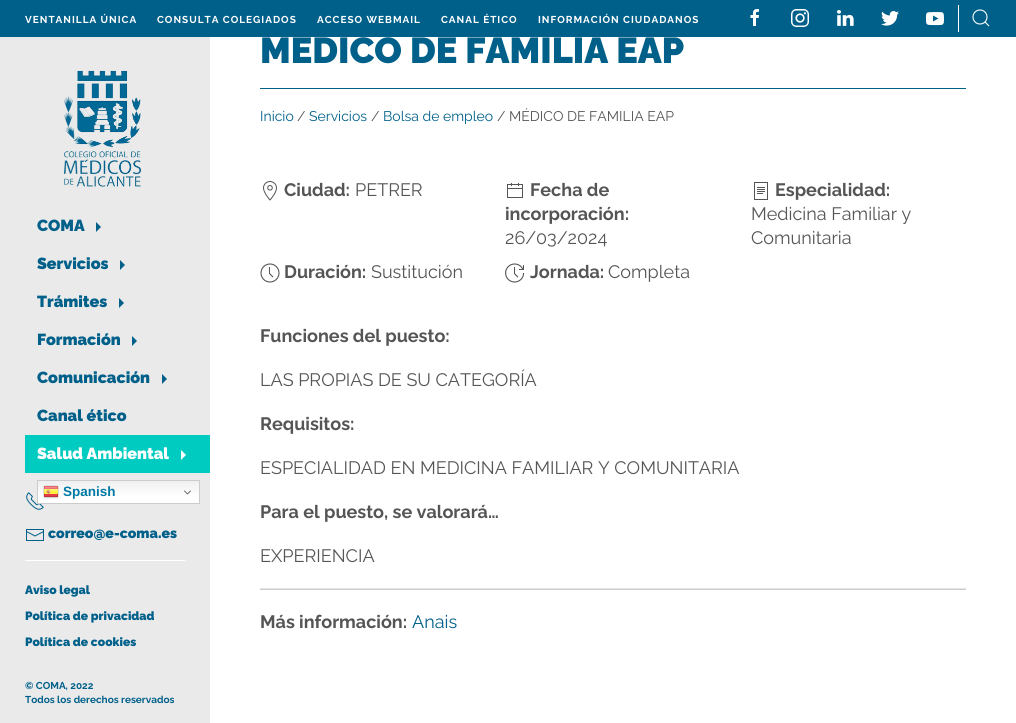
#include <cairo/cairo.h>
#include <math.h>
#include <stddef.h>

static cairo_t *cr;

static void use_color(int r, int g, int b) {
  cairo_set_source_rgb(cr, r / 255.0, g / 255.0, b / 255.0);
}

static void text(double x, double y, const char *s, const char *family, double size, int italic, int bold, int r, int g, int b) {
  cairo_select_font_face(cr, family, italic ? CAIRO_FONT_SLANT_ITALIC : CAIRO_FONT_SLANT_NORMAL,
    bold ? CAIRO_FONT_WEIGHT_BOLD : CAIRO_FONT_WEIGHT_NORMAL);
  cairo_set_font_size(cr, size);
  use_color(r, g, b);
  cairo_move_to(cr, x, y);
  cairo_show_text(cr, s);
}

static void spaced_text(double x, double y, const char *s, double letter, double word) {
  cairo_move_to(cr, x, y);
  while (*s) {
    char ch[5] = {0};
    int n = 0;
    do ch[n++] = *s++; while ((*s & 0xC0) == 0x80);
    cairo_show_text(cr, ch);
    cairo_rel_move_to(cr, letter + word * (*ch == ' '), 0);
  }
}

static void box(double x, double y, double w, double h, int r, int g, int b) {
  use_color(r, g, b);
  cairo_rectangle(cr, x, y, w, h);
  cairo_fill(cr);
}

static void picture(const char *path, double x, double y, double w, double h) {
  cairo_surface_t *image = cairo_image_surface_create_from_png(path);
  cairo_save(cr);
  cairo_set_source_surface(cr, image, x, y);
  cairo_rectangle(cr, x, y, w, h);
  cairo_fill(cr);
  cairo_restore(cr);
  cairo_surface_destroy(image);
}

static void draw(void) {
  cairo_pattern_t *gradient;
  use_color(255, 255, 255);
  cairo_paint(cr);
  box(0, 0, 1016, 37, 0, 96, 138);
  picture("img_01.png", 750, 9, 9, 17);
  picture("img_02.png", 791, 9, 18, 18);
  picture("img_03.png", 837, 10, 17, 16);
  picture("img_04.png", 881, 11, 18, 15);
  picture("img_05.png", 926, 12, 18, 14);
  box(958, 5, 1, 27, 255, 255, 255);
  cairo_arc(cr, 980, 17, 7, 0, 2 * M_PI);
  cairo_set_line_width(cr, 1.1);
  cairo_stroke(cr);
  cairo_new_path(cr);
  cairo_move_to(cr, 985, 22);
  cairo_line_to(cr, 989, 26);
  cairo_close_path(cr);
  cairo_stroke(cr);
  box(0, 37, 210, 686, 234, 234, 234);
  picture("img_06.png", 63, 70, 79, 117);
  use_color(0, 96, 138);
  cairo_new_path(cr);
  cairo_move_to(cr, 96, 222);
  cairo_line_to(cr, 101, 227);
  cairo_line_to(cr, 96, 232);
  cairo_close_path(cr);
  cairo_fill(cr);
  cairo_new_path(cr);
  cairo_move_to(cr, 120, 260);
  cairo_line_to(cr, 125, 265);
  cairo_line_to(cr, 120, 270);
  cairo_close_path(cr);
  cairo_fill(cr);
  cairo_new_path(cr);
  cairo_move_to(cr, 119, 298);
  cairo_line_to(cr, 124, 303);
  cairo_line_to(cr, 119, 308);
  cairo_close_path(cr);
  cairo_fill(cr);
  cairo_new_path(cr);
  cairo_move_to(cr, 132, 336);
  cairo_line_to(cr, 137, 341);
  cairo_line_to(cr, 132, 346);
  cairo_close_path(cr);
  cairo_fill(cr);
  cairo_new_path(cr);
  cairo_move_to(cr, 162, 374);
  cairo_line_to(cr, 167, 379);
  cairo_line_to(cr, 162, 384);
  cairo_close_path(cr);
  cairo_fill(cr);
  box(25, 435, 185, 38, 0, 203, 193);
  use_color(255, 255, 255);
  cairo_new_path(cr);
  cairo_move_to(cr, 181, 450);
  cairo_line_to(cr, 186, 455);
  cairo_line_to(cr, 181, 460);
  cairo_close_path(cr);
  cairo_fill(cr);
  picture("img_09.png", 26, 492, 18, 18);
  gradient = cairo_pattern_create_linear(119, 480, 119, 504);
  cairo_pattern_add_color_stop_rgba(gradient, 0, 0.937, 0.937, 0.937, 1);
  cairo_pattern_add_color_stop_rgba(gradient, 0.7, 1, 1, 1, 1);
  cairo_set_source(cr, gradient);
  cairo_pattern_destroy(gradient);
  cairo_rectangle(cr, 38, 481, 161, 22);
  cairo_fill(cr);
  cairo_rectangle(cr, 37.5, 480.5, 162, 23);
  use_color(204, 204, 204);
  cairo_set_line_width(cr, 1);
  cairo_stroke(cr);
  picture("img_07.png", 43, 485, 16, 14);
  picture("img_08.png", 184, 490, 7, 5);
  picture("img_10.png", 26, 529, 18, 12);
  box(25, 560, 160, 1, 255, 255, 255);
  box(260, 88, 706, 1, 0, 96, 138);
  picture("img_11.png", 263, 181, 14, 20);
  picture("img_12.png", 507, 183, 16, 15);
  picture("img_13.png", 754, 182, 14, 18);
  cairo_arc(cr, 270, 273, 9, 0, 2 * M_PI);
  use_color(85, 85, 85);
  cairo_set_line_width(cr, 1.1);
  cairo_stroke(cr);
  box(269, 267, 1, 7, 85, 85, 85);
  cairo_new_path(cr);
  cairo_move_to(cr, 273, 277);
  cairo_line_to(cr, 269.5, 273.5);
  cairo_stroke(cr);
  picture("img_14.png", 505, 263, 20, 20);
  box(260, 589, 706, 1, 204, 204, 204);
  box(260, 588, 706, 1, 229, 229, 229);
  cairo_select_font_face(cr, "Raleway", CAIRO_FONT_SLANT_NORMAL, CAIRO_FONT_WEIGHT_BOLD);
  cairo_set_font_size(cr, 10);
  use_color(255, 255, 255);
  spaced_text(25, 23, "VENTANILLA ÚNICA", 1, 0);
  spaced_text(157, 23, "CONSULTA COLEGIADOS", 1, 0);
  spaced_text(317, 23, "ACCESO WEBMAIL", 1, 0);
  spaced_text(441, 23, "CANAL ÉTICO", 1, 0);
  spaced_text(538, 23, "INFORMACIÓN CIUDADANOS", 1, 0);
  text(37, 231, "COMA", "Raleway Black", 16, 0, 0, 0, 96, 138);
  text(37, 269, "Servicios", "Raleway Black", 16, 0, 0, 0, 96, 138);
  text(37, 307, "Trámites", "Raleway Black", 16, 0, 0, 0, 96, 138);
  text(37, 345, "Formación", "Raleway Black", 16, 0, 0, 0, 96, 138);
  text(37, 383, "Comunicación", "Raleway Black", 16, 0, 0, 0, 96, 138);
  text(37, 421, "Canal ético", "Raleway Black", 16, 0, 0, 0, 96, 138);
  text(37, 459, "Salud Ambiental", "Raleway Black", 16, 0, 0, 255, 255, 255);
  text(63, 496, "Spanish", "Liberation Sans", 13.5, 0, 1, 0, 122, 165);
  text(48, 538, "correo@e-coma.es", "Raleway Black", 14, 0, 0, 0, 96, 138);
  text(25, 594, "Aviso legal", "Raleway Black", 12, 0, 0, 0, 96, 138);
  text(25, 620, "Política de privacidad", "Raleway Black", 12, 0, 0, 0, 96, 138);
  text(25, 646, "Política de cookies", "Raleway Black", 12, 0, 0, 0, 96, 138);
  text(25, 689, "© COMA, 2022", "Raleway", 10, 0, 1, 0, 96, 138);
  text(25, 703, "Todos los derechos reservados", "Raleway", 10, 0, 1, 0, 96, 138);
  text(260, 63, "MÉDICO DE FAMILIA EAP", "Raleway Black", 36, 0, 0, 0, 96, 138);
  text(260, 121, "Inicio", "Raleway", 14, 0, 0, 0, 96, 138);
  text(297, 121, "/", "Raleway", 14, 0, 0, 85, 85, 85);
  text(309, 121, "Servicios", "Raleway", 14, 0, 0, 0, 96, 138);
  text(371, 121, "/", "Raleway", 14, 0, 0, 85, 85, 85);
  text(383, 121, "Bolsa de empleo", "Raleway", 14, 0, 0, 0, 96, 138);
  text(497, 121, "/ MÉDICO DE FAMILIA EAP", "Raleway", 14, 0, 0, 85, 85, 85);
  text(284, 196, "Ciudad:", "Raleway", 18, 0, 1, 85, 85, 85);
  text(355, 196, "PETRER", "Raleway", 18, 0, 0, 85, 85, 85);
  text(530, 196, "Fecha de", "Raleway", 18, 0, 1, 85, 85, 85);
  text(505, 220, "incorporación:", "Raleway", 18, 0, 1, 85, 85, 85);
  text(505, 244, "26/03/2024", "Raleway", 18, 0, 0, 85, 85, 85);
  text(775, 196, "Especialidad:", "Raleway", 18, 0, 1, 85, 85, 85);
  text(751, 220, "Medicina Familiar y", "Raleway", 18, 0, 0, 85, 85, 85);
  text(751, 244, "Comunitaria", "Raleway", 18, 0, 0, 85, 85, 85);
  text(284, 278, "Duración:", "Raleway", 18, 0, 1, 85, 85, 85);
  text(371, 278, "Sustitución", "Raleway", 18, 0, 0, 85, 85, 85);
  text(530, 278, "Jornada:", "Raleway", 18, 0, 1, 85, 85, 85);
  text(608, 278, "Completa", "Raleway", 18, 0, 0, 85, 85, 85);
  text(260, 342, "Funciones del puesto:", "Raleway", 18, 0, 1, 85, 85, 85);
  text(260, 386, "LAS PROPIAS DE SU CATEGORÍA", "Raleway", 18, 0, 0, 85, 85, 85);
  text(260, 430, "Requisitos:", "Raleway", 18, 0, 1, 85, 85, 85);
  text(260, 474, "ESPECIALIDAD EN MEDICINA FAMILIAR Y COMUNITARIA", "Raleway", 18, 0, 0, 85, 85, 85);
  text(260, 518, "Para el puesto, se valorará…", "Raleway", 18, 0, 1, 85, 85, 85);
  text(260, 562, "EXPERIENCIA", "Raleway", 18, 0, 0, 85, 85, 85);
  text(260, 628, "Más información:", "Raleway", 18, 0, 1, 85, 85, 85);
  text(412, 628, "Anais", "Raleway", 18, 0, 0, 0, 96, 138);
}

int main(void) {
  cairo_surface_t *surface = cairo_image_surface_create(CAIRO_FORMAT_RGB24, 1016, 723);
  cr = cairo_create(surface);
  cairo_font_options_t *options = cairo_font_options_create();
  cairo_font_options_set_hint_metrics(options, CAIRO_HINT_METRICS_OFF);
  cairo_font_options_set_hint_style(options, CAIRO_HINT_STYLE_NONE);
  cairo_set_font_options(cr, options);
  cairo_set_miter_limit(cr, 4);
  draw();
  cairo_surface_write_to_png(surface, "out.png");
  cairo_font_options_destroy(options);
  cairo_destroy(cr);
  cairo_surface_destroy(surface);
  return 0;
}
